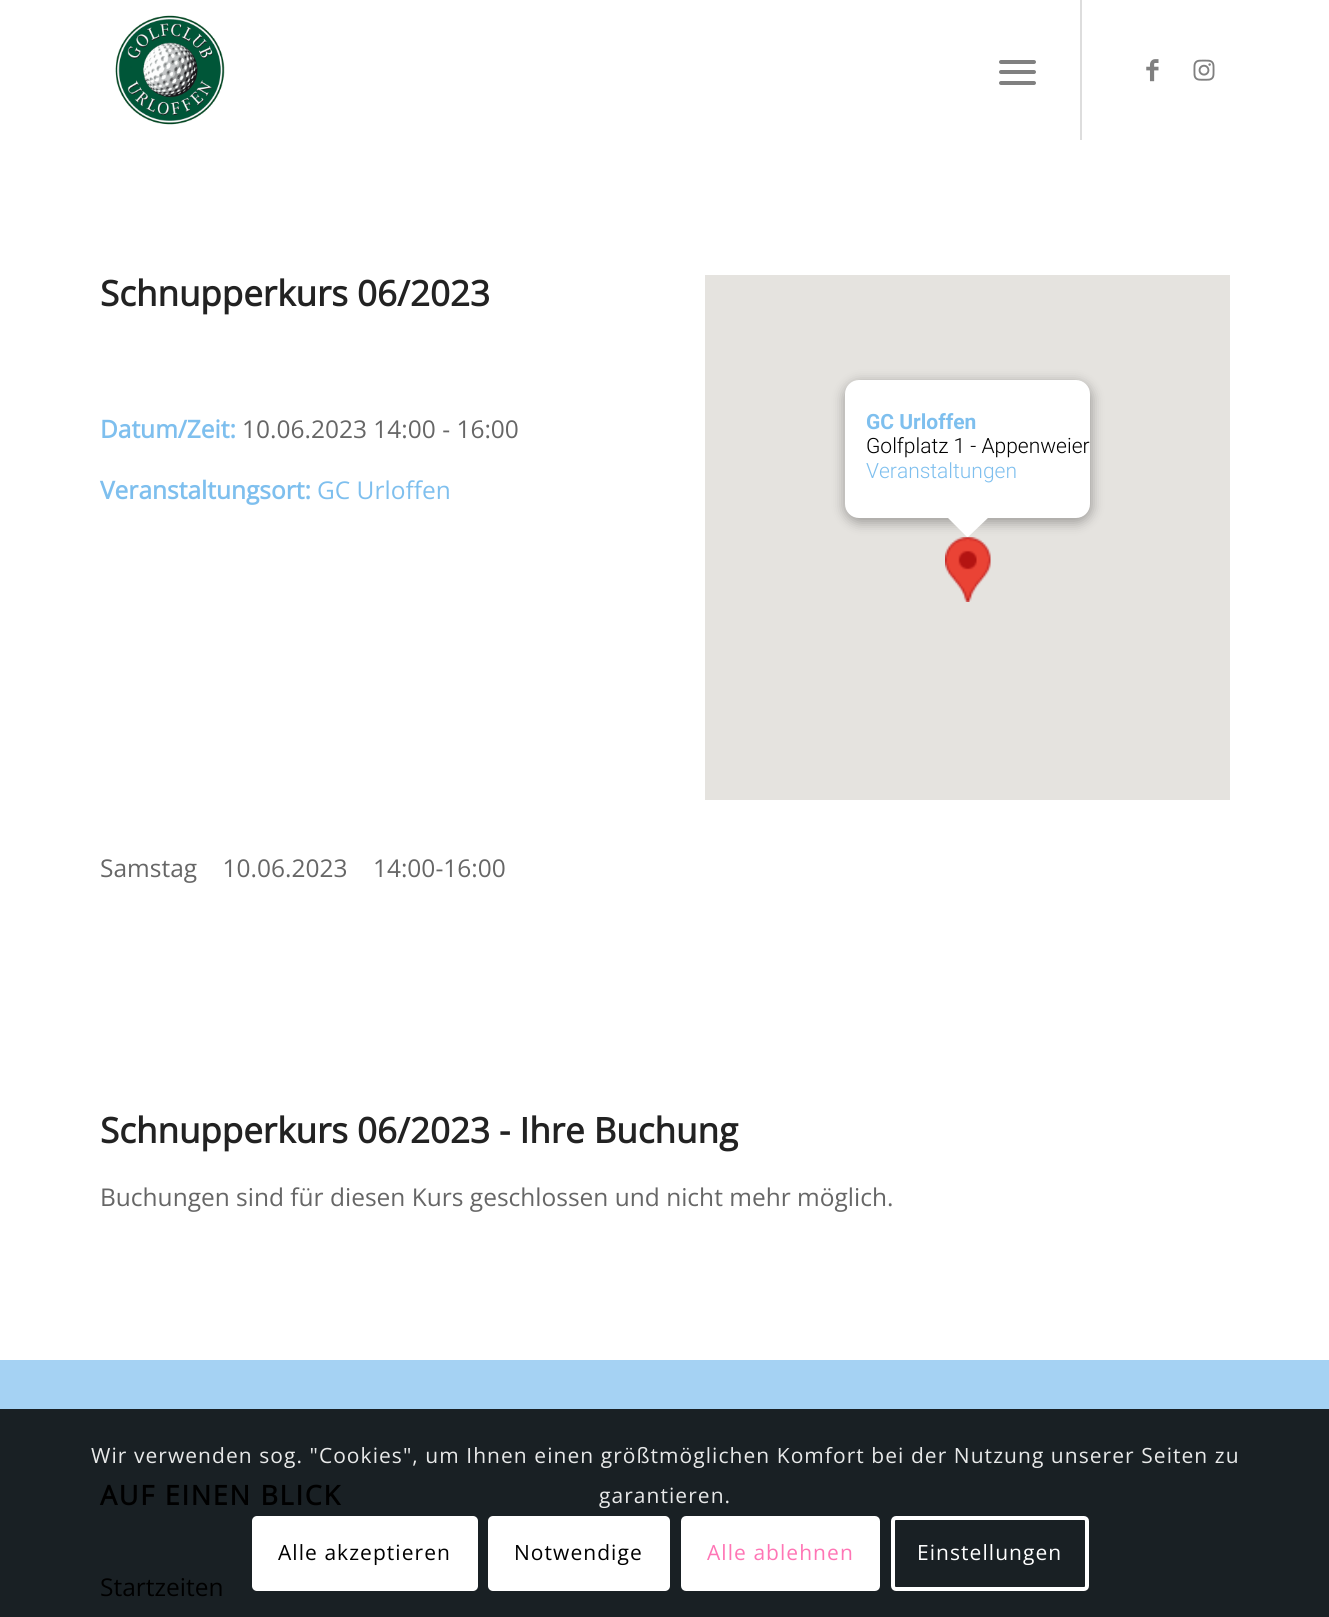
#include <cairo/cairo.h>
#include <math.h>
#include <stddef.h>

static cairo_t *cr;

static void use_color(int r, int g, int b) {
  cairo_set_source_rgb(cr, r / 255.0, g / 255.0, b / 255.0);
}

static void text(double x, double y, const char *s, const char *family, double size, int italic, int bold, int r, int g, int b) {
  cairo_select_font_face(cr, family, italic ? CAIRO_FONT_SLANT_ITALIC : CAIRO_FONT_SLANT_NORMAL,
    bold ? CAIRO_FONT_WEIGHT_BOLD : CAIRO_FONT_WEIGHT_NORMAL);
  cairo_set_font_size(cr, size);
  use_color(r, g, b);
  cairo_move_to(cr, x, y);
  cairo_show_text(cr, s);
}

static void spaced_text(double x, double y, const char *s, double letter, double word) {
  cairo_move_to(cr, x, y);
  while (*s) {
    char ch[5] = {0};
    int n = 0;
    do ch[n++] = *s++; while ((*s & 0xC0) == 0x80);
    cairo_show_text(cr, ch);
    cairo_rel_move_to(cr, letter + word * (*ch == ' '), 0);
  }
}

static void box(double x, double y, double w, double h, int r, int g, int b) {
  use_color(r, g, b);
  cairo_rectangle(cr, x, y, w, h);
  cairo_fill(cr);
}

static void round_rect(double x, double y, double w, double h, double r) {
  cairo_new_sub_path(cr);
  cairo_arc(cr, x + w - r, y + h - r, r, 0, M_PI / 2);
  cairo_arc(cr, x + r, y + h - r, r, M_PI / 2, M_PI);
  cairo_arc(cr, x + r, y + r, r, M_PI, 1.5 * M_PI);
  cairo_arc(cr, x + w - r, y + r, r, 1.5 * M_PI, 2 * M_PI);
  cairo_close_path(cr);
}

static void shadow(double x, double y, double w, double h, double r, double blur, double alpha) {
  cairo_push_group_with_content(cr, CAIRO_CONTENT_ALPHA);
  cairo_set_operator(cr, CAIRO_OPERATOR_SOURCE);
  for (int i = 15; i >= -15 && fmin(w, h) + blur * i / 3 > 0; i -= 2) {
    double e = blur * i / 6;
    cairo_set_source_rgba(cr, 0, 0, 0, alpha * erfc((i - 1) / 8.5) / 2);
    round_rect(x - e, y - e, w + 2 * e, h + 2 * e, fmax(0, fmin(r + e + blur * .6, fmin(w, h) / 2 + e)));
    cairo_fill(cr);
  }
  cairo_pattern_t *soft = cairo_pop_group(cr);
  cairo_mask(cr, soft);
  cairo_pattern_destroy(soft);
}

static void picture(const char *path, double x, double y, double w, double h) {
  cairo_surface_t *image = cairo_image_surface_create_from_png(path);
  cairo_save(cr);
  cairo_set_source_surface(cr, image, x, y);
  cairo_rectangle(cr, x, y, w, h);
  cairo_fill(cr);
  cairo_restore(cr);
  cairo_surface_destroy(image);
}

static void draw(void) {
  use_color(255, 255, 255);
  cairo_paint(cr);
  picture("img_01.png", 115, 15, 110, 110);
  box(1080, 0, 2, 140, 221, 221, 221);
  use_color(128, 128, 128);
  round_rect(999, 70, 37, 4, 2);
  cairo_fill(cr);
  round_rect(999, 60, 37, 4, 2);
  cairo_fill(cr);
  round_rect(999, 81, 37, 4, 2);
  cairo_fill(cr);
  picture("img_02.png", 1146, 59, 13, 23);
  picture("img_03.png", 1193, 59, 22, 22);
  box(705, 275, 525, 525, 229, 227, 223);
  picture("img_04.png", 945, 537, 46, 65);
  use_color(0, 0, 0);
  shadow(844, 382, 248, 141, 16, 6, 0.3);
  use_color(255, 255, 255);
  round_rect(845, 380, 245, 138, 14);
  cairo_fill(cr);
  cairo_new_path(cr);
  cairo_move_to(cr, 947, 517);
  cairo_line_to(cr, 947, 516);
  cairo_line_to(cr, 990, 516);
  cairo_line_to(cr, 968, 537);
  cairo_line_to(cr, 967, 537);
  cairo_close_path(cr);
  cairo_fill(cr);
  box(0, 1360, 1329, 49, 165, 210, 243);
  box(0, 1409, 1329, 208, 25, 32, 36);
  use_color(255, 255, 255);
  round_rect(252, 1516, 226, 75, 5);
  cairo_fill(cr);
  round_rect(488, 1516, 182, 75, 5);
  cairo_fill(cr);
  round_rect(683, 1518, 195, 71, 3);
  cairo_fill_preserve(cr);
  cairo_set_line_width(cr, 4);
  cairo_stroke(cr);
  round_rect(893, 1518, 194, 71, 3);
  cairo_stroke(cr);
  text(100, 306, "Schnupperkurs 06/2023", "Open Sans", 35, 0, 1, 34, 34, 34);
  text(100, 438, "Datum/Zeit:", "Open Sans", 24.5, 0, 1, 126, 191, 238);
  text(242, 438, "10.06.2023 14:00 - 16:00", "Open Sans", 24.5, 0, 0, 102, 102, 102);
  text(866, 429, "GC Urloffen", "Roboto", 21, 0, 1, 126, 191, 238);
  text(866, 453, "Golfplatz 1 - Appenweier", "Roboto Light", 21, 0, 0, 0, 0, 0);
  text(866, 478, "Veranstaltungen", "Roboto Light", 21, 0, 0, 126, 191, 238);
  text(100, 499, "Veranstaltungsort:", "Open Sans", 24.5, 0, 1, 126, 191, 238);
  text(317, 499, "GC Urloffen", "Open Sans", 24.5, 0, 0, 126, 191, 238);
  text(100, 877, "Samstag    10.06.2023    14:00-16:00", "Open Sans", 24.5, 0, 0, 102, 102, 102);
  text(100, 1143, "Schnupperkurs 06/2023 - Ihre Buchung", "Open Sans", 35, 0, 1, 34, 34, 34);
  text(100, 1206, "Buchungen sind für diesen Kurs geschlossen und nicht mehr möglich.", "Open Sans", 24.5, 0, 0, 102, 102, 102);
  cairo_select_font_face(cr, "Open Sans", CAIRO_FONT_SLANT_NORMAL, CAIRO_FONT_WEIGHT_BOLD);
  cairo_set_font_size(cr, 27);
  use_color(0, 0, 0);
  spaced_text(100, 1505, "AUF EINEN BLICK", 1.75, 0);
  text(100, 1596, "Startzeiten", "Open Sans", 24.5, 0, 0, 0, 0, 0);
  cairo_set_font_size(cr, 21);
  use_color(232, 233, 233);
  spaced_text(91, 1463, "Wir verwenden sog. \"Cookies\", um Ihnen einen größtmöglichen Komfort bei der Nutzung unserer Seiten zu", 1.05, 0);
  spaced_text(599, 1503, "garantieren.", 1.05, 0);
  use_color(0, 0, 0);
  spaced_text(278, 1560, "Alle akzeptieren", 1.05, 0);
  spaced_text(514, 1560, "Notwendige", 1.05, 0);
  use_color(255, 117, 181);
  spaced_text(707, 1560, "Alle ablehnen", 1.05, 0);
  use_color(255, 255, 255);
  spaced_text(917, 1560, "Einstellungen", 1.05, 0);
}

int main(void) {
  cairo_surface_t *surface = cairo_image_surface_create(CAIRO_FORMAT_RGB24, 1329, 1617);
  cr = cairo_create(surface);
  cairo_font_options_t *options = cairo_font_options_create();
  cairo_font_options_set_hint_metrics(options, CAIRO_HINT_METRICS_OFF);
  cairo_font_options_set_hint_style(options, CAIRO_HINT_STYLE_NONE);
  cairo_set_font_options(cr, options);
  cairo_set_miter_limit(cr, 4);
  draw();
  cairo_surface_write_to_png(surface, "out.png");
  cairo_font_options_destroy(options);
  cairo_destroy(cr);
  cairo_surface_destroy(surface);
  return 0;
}
